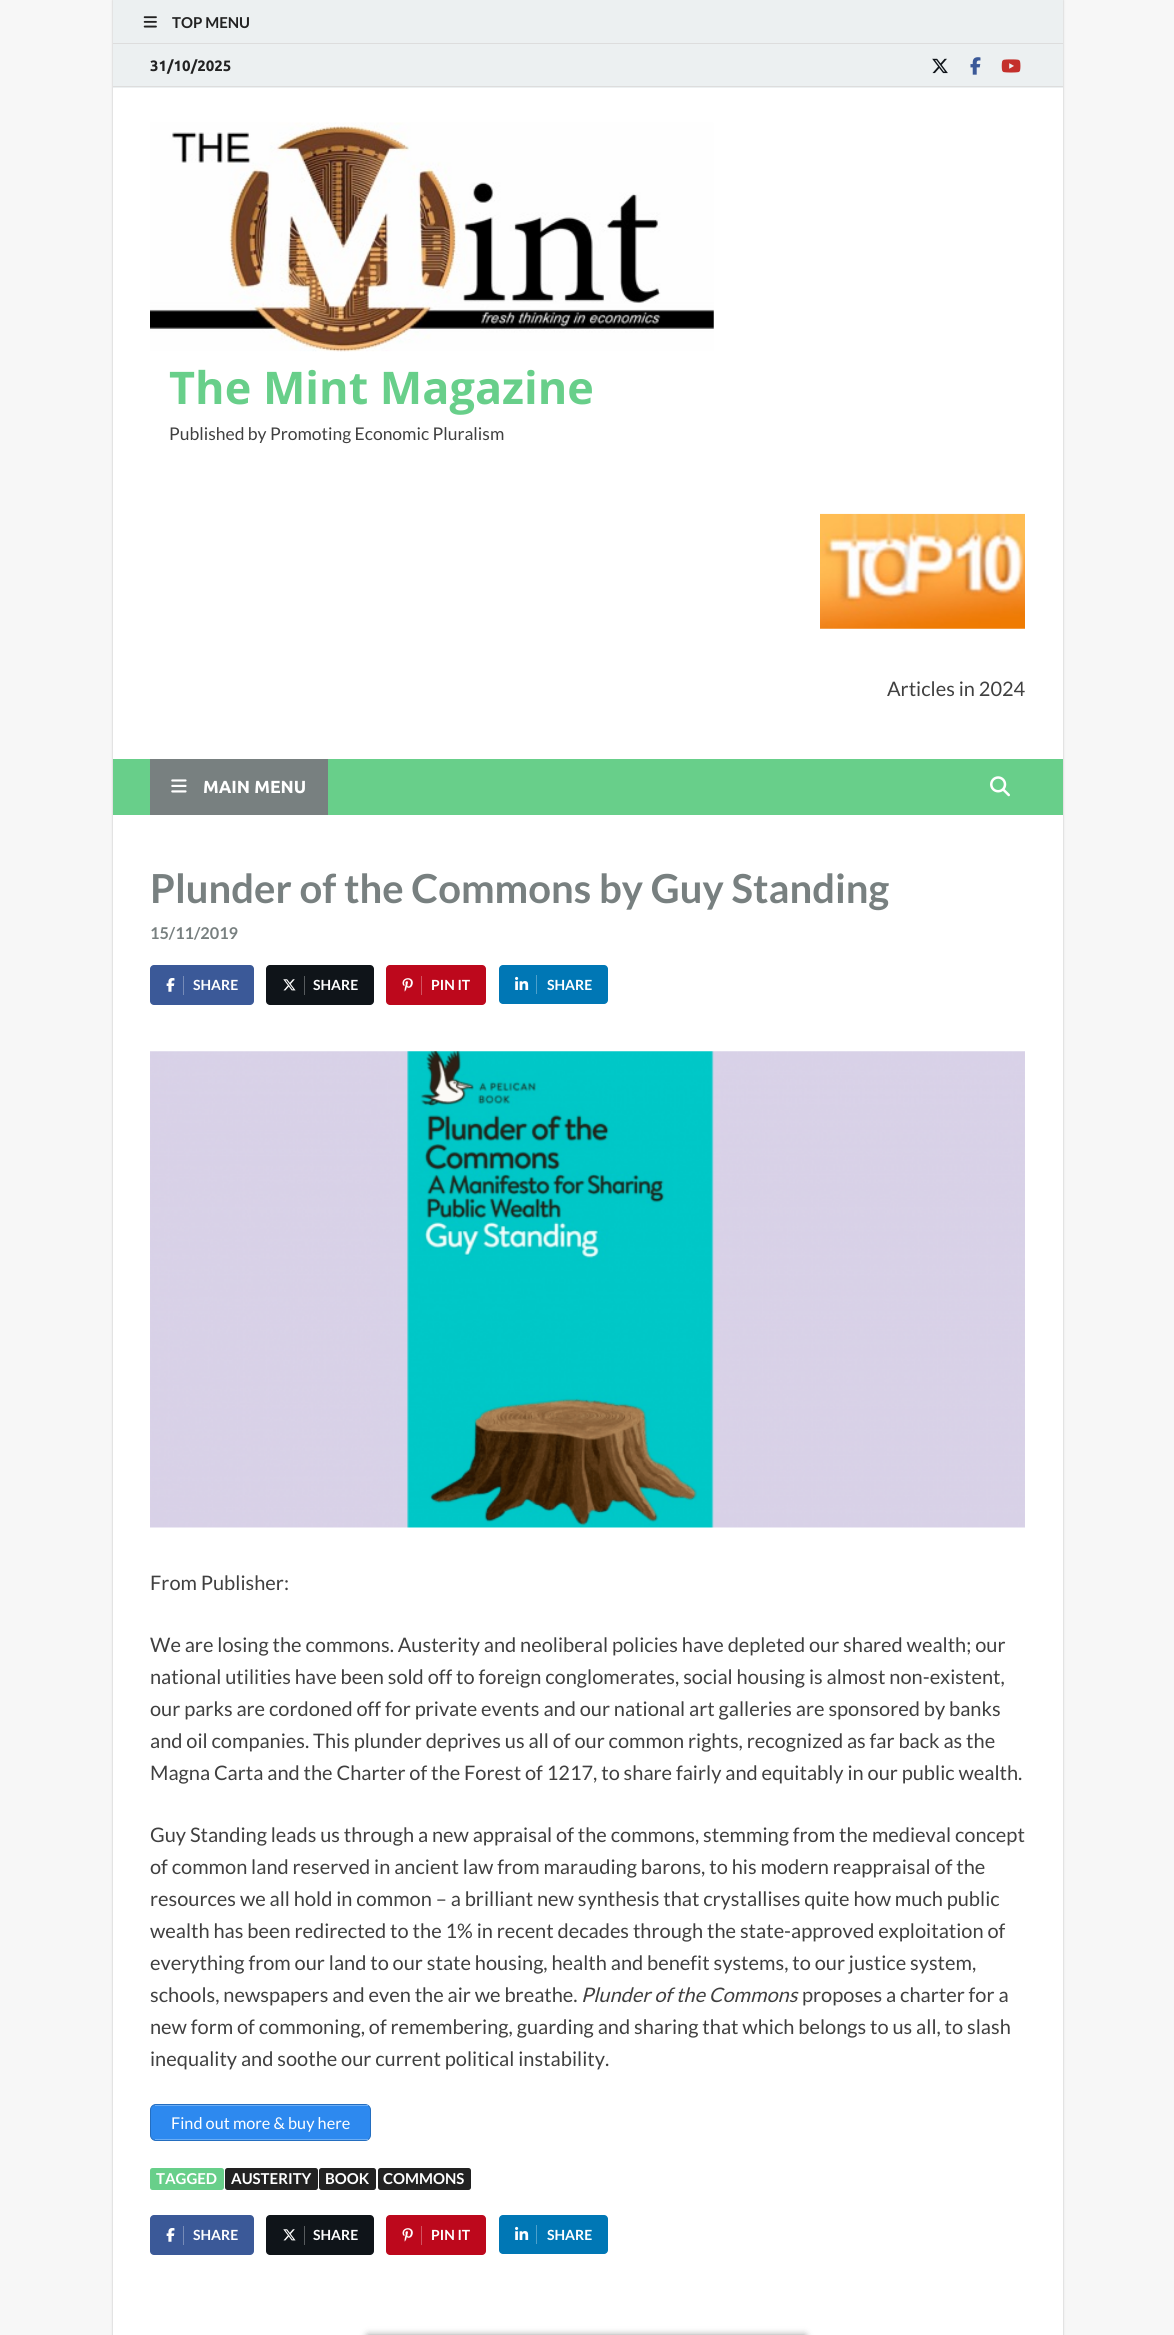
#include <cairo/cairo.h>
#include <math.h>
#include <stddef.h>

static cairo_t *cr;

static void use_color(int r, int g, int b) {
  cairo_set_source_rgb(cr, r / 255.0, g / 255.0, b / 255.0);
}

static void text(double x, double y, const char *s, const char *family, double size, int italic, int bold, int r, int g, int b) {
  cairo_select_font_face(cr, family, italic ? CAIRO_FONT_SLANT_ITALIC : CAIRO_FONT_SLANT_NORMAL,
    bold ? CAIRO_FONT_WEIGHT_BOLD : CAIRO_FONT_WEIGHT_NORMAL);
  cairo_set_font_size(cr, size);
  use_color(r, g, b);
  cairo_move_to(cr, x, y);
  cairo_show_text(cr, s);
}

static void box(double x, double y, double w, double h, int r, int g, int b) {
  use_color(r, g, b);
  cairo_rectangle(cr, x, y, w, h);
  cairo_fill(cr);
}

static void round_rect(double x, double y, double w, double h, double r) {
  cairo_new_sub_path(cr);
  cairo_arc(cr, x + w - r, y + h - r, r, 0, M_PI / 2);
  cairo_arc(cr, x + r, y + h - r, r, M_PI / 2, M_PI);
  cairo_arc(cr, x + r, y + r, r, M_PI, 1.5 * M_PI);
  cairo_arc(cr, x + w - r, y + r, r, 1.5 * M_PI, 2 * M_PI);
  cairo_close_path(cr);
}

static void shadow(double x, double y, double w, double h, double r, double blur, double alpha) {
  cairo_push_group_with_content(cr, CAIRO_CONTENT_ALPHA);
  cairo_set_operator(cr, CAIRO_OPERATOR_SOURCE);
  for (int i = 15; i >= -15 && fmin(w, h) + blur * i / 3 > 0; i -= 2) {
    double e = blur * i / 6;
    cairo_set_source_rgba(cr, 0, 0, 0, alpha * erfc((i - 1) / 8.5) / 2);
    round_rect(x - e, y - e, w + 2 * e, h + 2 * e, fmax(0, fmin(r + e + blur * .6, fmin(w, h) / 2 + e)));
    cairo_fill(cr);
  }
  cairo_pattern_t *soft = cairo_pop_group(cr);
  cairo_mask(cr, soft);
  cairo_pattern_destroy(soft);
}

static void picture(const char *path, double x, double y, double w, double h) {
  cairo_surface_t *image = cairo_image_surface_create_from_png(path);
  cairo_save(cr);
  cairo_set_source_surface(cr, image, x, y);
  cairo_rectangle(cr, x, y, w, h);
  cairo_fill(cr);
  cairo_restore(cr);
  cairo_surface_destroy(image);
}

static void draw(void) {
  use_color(247, 247, 247);
  cairo_paint(cr);
  use_color(187, 187, 187);
  shadow(113, 0, 950, 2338, 0, 1, 1);
  box(113, 88, 950, 2247, 255, 255, 255);
  box(113, 0, 950, 43, 236, 240, 241);
  box(113, 43, 950, 1, 221, 221, 221);
  picture("img_01.png", 143, 16, 14, 12);
  box(113, 44, 950, 44, 236, 240, 241);
  box(113, 86, 950, 1, 221, 221, 221);
  picture("img_02.png", 932, 58, 16, 16);
  picture("img_03.png", 970, 57, 11, 18);
  picture("img_04.png", 1001, 59, 20, 14);
  picture("img_05.png", 150, 122, 564, 230);
  picture("img_06.png", 820, 513, 205, 116);
  box(113, 759, 950, 56, 104, 207, 138);
  box(150, 759, 178, 56, 120, 128, 128);
  picture("img_07.png", 171, 779, 16, 14);
  picture("img_08.png", 990, 776, 20, 21);
  use_color(59, 89, 152);
  round_rect(150, 965, 104, 40, 4);
  cairo_fill(cr);
  box(183, 976, 1, 19, 118, 139, 183);
  picture("img_09.png", 166, 978, 9, 14);
  use_color(15, 20, 25);
  round_rect(266, 965, 108, 40, 4);
  cairo_fill(cr);
  box(304, 976, 1, 19, 87, 91, 94);
  picture("img_10.png", 283, 979, 13, 12);
  use_color(189, 8, 28);
  round_rect(386, 965, 100, 40, 4);
  cairo_fill(cr);
  box(421, 976, 1, 19, 209, 82, 96);
  picture("img_11.png", 402, 978, 11, 14);
  use_color(0, 119, 181);
  round_rect(499, 965, 109, 39, 4);
  cairo_fill(cr);
  box(536, 975, 1, 19, 77, 160, 203);
  picture("img_12.png", 515, 976, 14, 14);
  picture("img_13.png", 150, 1051, 875, 477);
  use_color(45, 137, 239);
  round_rect(150.5, 2104.5, 220, 36, 5.5);
  cairo_fill_preserve(cr);
  use_color(36, 110, 192);
  cairo_set_line_width(cr, 1);
  cairo_stroke(cr);
  box(155, 2105, 213, 1, 108, 173, 244);
  box(155, 2139, 213, 1, 108, 173, 244);
  use_color(104, 207, 138);
  round_rect(150, 2168, 74, 22, 2.5);
  cairo_fill(cr);
  use_color(34, 34, 34);
  round_rect(225, 2168, 93, 22, 2.5);
  cairo_fill(cr);
  round_rect(319, 2168, 57, 22, 2.5);
  cairo_fill(cr);
  round_rect(378, 2168, 93, 22, 2.5);
  cairo_fill(cr);
  use_color(59, 89, 152);
  round_rect(150, 2215, 104, 40, 4);
  cairo_fill(cr);
  box(183, 2226, 1, 19, 118, 139, 183);
  picture("img_09.png", 166, 2228, 9, 14);
  use_color(15, 20, 25);
  round_rect(266, 2215, 108, 40, 4);
  cairo_fill(cr);
  box(304, 2226, 1, 19, 87, 91, 94);
  picture("img_10.png", 283, 2229, 13, 12);
  use_color(189, 8, 28);
  round_rect(386, 2215, 100, 40, 4);
  cairo_fill(cr);
  box(421, 2226, 1, 19, 209, 82, 96);
  picture("img_11.png", 402, 2228, 11, 14);
  use_color(0, 119, 181);
  round_rect(499, 2215, 109, 39, 4);
  cairo_fill(cr);
  box(536, 2225, 1, 19, 77, 160, 203);
  picture("img_12.png", 515, 2226, 14, 14);
  use_color(0, 0, 0);
  shadow(368, 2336, 437, 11, 0, 4, 0.5);
  text(172, 28, "TOP MENU", "Lato", 15, 0, 1, 34, 34, 34);
  text(150, 71, "31/10/2025", "Ubuntu", 15, 0, 1, 34, 34, 34);
  text(169, 404, "The Mint Magazine", "Open Sans", 45, 0, 1, 104, 207, 138);
  text(169, 440, "Published by Promoting Economic Pluralism", "Lato", 17.5, 0, 0, 64, 64, 64);
  text(887, 696, "Articles in 2024", "Lato", 20, 0, 0, 64, 64, 64);
  text(203, 793, "MAIN MENU", "Ubuntu", 17.5, 0, 1, 255, 255, 255);
  text(150, 903, "Plunder of the Commons by Guy Standing", "Lato", 40, 0, 1, 120, 128, 128);
  text(150, 939, "15/11/2019", "Lato", 16.25, 0, 1, 120, 128, 128);
  text(193, 990, "SHARE", "Lato", 14, 0, 1, 255, 255, 255);
  text(313, 990, "SHARE", "Lato", 14, 0, 1, 255, 255, 255);
  text(431, 990, "PIN IT", "Lato", 14, 0, 1, 255, 255, 255);
  text(547, 990, "SHARE", "Lato", 14, 0, 1, 255, 255, 255);
  text(150, 1590, "From Publisher:", "Lato", 20, 0, 0, 64, 64, 64);
  text(150, 1652, "We are losing the commons. Austerity and neoliberal policies have depleted our shared wealth; our", "Lato", 20, 0, 0, 64, 64, 64);
  text(150, 1684, "national utilities have been sold off to foreign conglomerates, social housing is almost non-existent,", "Lato", 20, 0, 0, 64, 64, 64);
  text(150, 1716, "our parks are cordoned off for private events and our national art galleries are sponsored by banks", "Lato", 20, 0, 0, 64, 64, 64);
  text(150, 1748, "and oil companies. This plunder deprives us all of our common rights, recognized as far back as the", "Lato", 20, 0, 0, 64, 64, 64);
  text(150, 1780, "Magna Carta and the Charter of the Forest of 1217, to share fairly and equitably in our public wealth.", "Lato", 20, 0, 0, 64, 64, 64);
  text(150, 1842, "Guy Standing leads us through a new appraisal of the commons, stemming from the medieval concept", "Lato", 20, 0, 0, 64, 64, 64);
  text(150, 1874, "of common land reserved in ancient law from marauding barons, to his modern reappraisal of the", "Lato", 20, 0, 0, 64, 64, 64);
  text(150, 1906, "resources we all hold in common – a brilliant new synthesis that crystallises quite how much public", "Lato", 20, 0, 0, 64, 64, 64);
  text(150, 1938, "wealth has been redirected to the 1% in recent decades through the state-approved exploitation of", "Lato", 20, 0, 0, 64, 64, 64);
  text(150, 1970, "everything from our land to our state housing, health and benefit systems, to our justice system,", "Lato", 20, 0, 0, 64, 64, 64);
  text(150, 2002, "schools, newspapers and even the air we breathe.", "Lato", 20, 0, 0, 64, 64, 64);
  text(581, 2002, "Plunder of the Commons", "Lato", 20, 1, 0, 64, 64, 64);
  text(802, 2002, "proposes a charter for a", "Lato", 20, 0, 0, 64, 64, 64);
  text(150, 2034, "new form of commoning, of remembering, guarding and sharing that which belongs to us all, to slash", "Lato", 20, 0, 0, 64, 64, 64);
  text(150, 2066, "inequality and soothe our current political instability.", "Lato", 20, 0, 0, 64, 64, 64);
  text(171, 2129, "Find out more & buy here", "Lato", 16.25, 0, 0, 255, 255, 255);
  text(156, 2184, "TAGGED", "Lato", 15, 0, 1, 255, 255, 255);
  text(231, 2184, "AUSTERITY", "Lato", 15, 0, 1, 255, 255, 255);
  text(325, 2184, "BOOK", "Lato", 15, 0, 1, 255, 255, 255);
  text(383, 2184, "COMMONS", "Lato", 15, 0, 1, 255, 255, 255);
  text(193, 2240, "SHARE", "Lato", 14, 0, 1, 255, 255, 255);
  text(313, 2240, "SHARE", "Lato", 14, 0, 1, 255, 255, 255);
  text(431, 2240, "PIN IT", "Lato", 14, 0, 1, 255, 255, 255);
  text(547, 2240, "SHARE", "Lato", 14, 0, 1, 255, 255, 255);
}

int main(void) {
  cairo_surface_t *surface = cairo_image_surface_create(CAIRO_FORMAT_RGB24, 1174, 2335);
  cr = cairo_create(surface);
  cairo_font_options_t *options = cairo_font_options_create();
  cairo_font_options_set_hint_metrics(options, CAIRO_HINT_METRICS_OFF);
  cairo_font_options_set_hint_style(options, CAIRO_HINT_STYLE_NONE);
  cairo_set_font_options(cr, options);
  cairo_set_miter_limit(cr, 4);
  draw();
  cairo_surface_write_to_png(surface, "out.png");
  cairo_font_options_destroy(options);
  cairo_destroy(cr);
  cairo_surface_destroy(surface);
  return 0;
}
